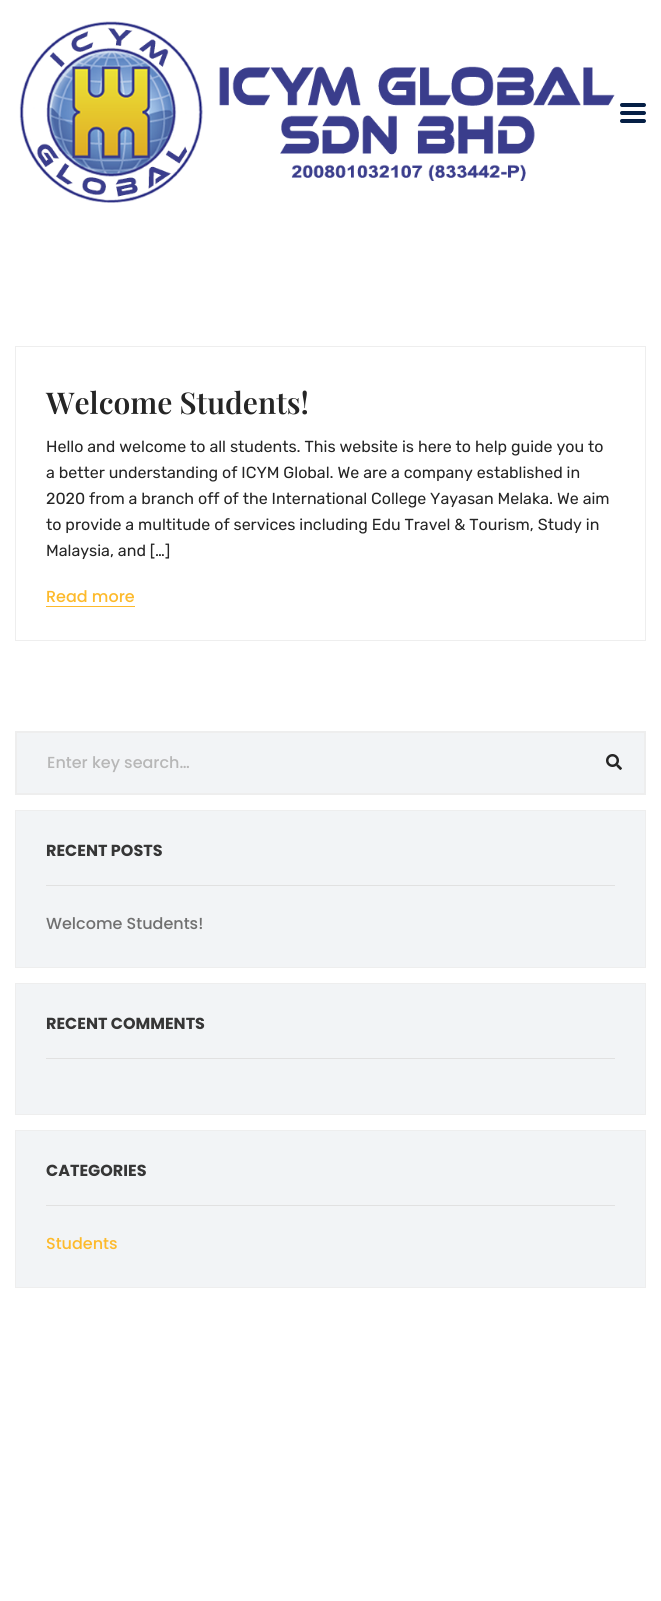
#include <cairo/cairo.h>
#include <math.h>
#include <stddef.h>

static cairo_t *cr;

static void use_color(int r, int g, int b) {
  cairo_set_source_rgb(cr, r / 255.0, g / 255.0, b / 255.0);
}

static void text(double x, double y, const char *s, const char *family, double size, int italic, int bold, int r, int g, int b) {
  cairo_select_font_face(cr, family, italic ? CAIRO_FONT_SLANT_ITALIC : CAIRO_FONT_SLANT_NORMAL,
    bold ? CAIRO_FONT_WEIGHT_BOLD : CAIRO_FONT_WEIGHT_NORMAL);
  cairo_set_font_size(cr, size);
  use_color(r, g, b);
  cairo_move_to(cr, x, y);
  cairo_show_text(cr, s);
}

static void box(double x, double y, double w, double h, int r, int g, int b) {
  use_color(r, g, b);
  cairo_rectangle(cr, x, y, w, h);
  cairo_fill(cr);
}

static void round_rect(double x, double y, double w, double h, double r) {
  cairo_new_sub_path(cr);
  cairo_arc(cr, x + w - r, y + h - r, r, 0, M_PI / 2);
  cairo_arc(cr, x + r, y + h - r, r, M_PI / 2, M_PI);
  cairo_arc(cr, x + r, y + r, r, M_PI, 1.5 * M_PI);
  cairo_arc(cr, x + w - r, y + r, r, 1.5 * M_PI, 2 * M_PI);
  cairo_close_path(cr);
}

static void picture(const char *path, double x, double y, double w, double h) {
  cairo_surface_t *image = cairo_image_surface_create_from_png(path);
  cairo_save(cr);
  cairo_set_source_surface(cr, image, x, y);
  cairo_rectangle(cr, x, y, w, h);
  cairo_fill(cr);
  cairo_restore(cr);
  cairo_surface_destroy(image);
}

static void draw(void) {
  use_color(255, 255, 255);
  cairo_paint(cr);
  picture("img_01.png", 19, 21, 596, 182);
  use_color(5, 31, 69);
  round_rect(620, 111, 26, 4, 2);
  cairo_fill(cr);
  round_rect(620, 103, 26, 4, 2);
  cairo_fill(cr);
  round_rect(620, 119, 26, 4, 2);
  cairo_fill(cr);
  cairo_rectangle(cr, 15.5, 346.5, 630, 294);
  use_color(238, 238, 238);
  cairo_set_line_width(cr, 1);
  cairo_stroke(cr);
  box(46, 606, 89, 1, 253, 186, 44);
  box(17, 733, 627, 60, 242, 244, 246);
  cairo_rectangle(cr, 15.5, 731.5, 630, 63);
  use_color(238, 238, 238);
  cairo_stroke(cr);
  cairo_rectangle(cr, 16.5, 732.5, 628, 61);
  cairo_stroke(cr);
  picture("img_02.png", 606, 754, 16, 16);
  use_color(242, 244, 246);
  cairo_rectangle(cr, 15.5, 810.5, 630, 157);
  cairo_fill_preserve(cr);
  use_color(238, 238, 238);
  cairo_stroke(cr);
  box(46, 885, 569, 1, 225, 225, 225);
  use_color(242, 244, 246);
  cairo_rectangle(cr, 15.5, 983.5, 630, 131);
  cairo_fill_preserve(cr);
  use_color(238, 238, 238);
  cairo_stroke(cr);
  box(46, 1058, 569, 1, 225, 225, 225);
  use_color(242, 244, 246);
  cairo_rectangle(cr, 15.5, 1130.5, 630, 157);
  cairo_fill_preserve(cr);
  use_color(238, 238, 238);
  cairo_stroke(cr);
  box(46, 1205, 569, 1, 225, 225, 225);
  text(46, 414, "Welcome Students!", "Playfair Display SemiBold", 30, 0, 0, 37, 37, 37);
  text(46, 452, "Hello and welcome to all students. This website is here to help guide you to", "Rubik", 16, 0, 0, 37, 37, 37);
  text(46, 478, "a better understanding of ICYM Global. We are a company established in", "Rubik", 16, 0, 0, 37, 37, 37);
  text(46, 504, "2020 from a branch off of the International College Yayasan Melaka. We aim", "Rubik", 16, 0, 0, 37, 37, 37);
  text(46, 530, "to provide a multitude of services including Edu Travel & Tourism, Study in", "Rubik", 16, 0, 0, 37, 37, 37);
  text(46, 556, "Malaysia, and […]", "Rubik", 16, 0, 0, 37, 37, 37);
  text(46, 602, "Read more", "Poppins Medium", 16, 0, 0, 253, 186, 44);
  text(47, 768, "Enter key search…", "Poppins Medium", 16, 0, 0, 183, 183, 183);
  text(46, 856, "RECENT POSTS", "Poppins", 16, 0, 1, 54, 54, 54);
  text(46, 929, "Welcome Students!", "Poppins Medium", 16, 0, 0, 112, 112, 112);
  text(46, 1029, "RECENT COMMENTS", "Poppins", 16, 0, 1, 54, 54, 54);
  text(46, 1176, "CATEGORIES", "Poppins", 16, 0, 1, 54, 54, 54);
  text(46, 1249, "Students", "Poppins Medium", 16, 0, 0, 253, 186, 44);
}

int main(void) {
  cairo_surface_t *surface = cairo_image_surface_create(CAIRO_FORMAT_RGB24, 661, 1601);
  cr = cairo_create(surface);
  cairo_font_options_t *options = cairo_font_options_create();
  cairo_font_options_set_hint_metrics(options, CAIRO_HINT_METRICS_OFF);
  cairo_font_options_set_hint_style(options, CAIRO_HINT_STYLE_NONE);
  cairo_set_font_options(cr, options);
  cairo_set_miter_limit(cr, 4);
  draw();
  cairo_surface_write_to_png(surface, "out.png");
  cairo_font_options_destroy(options);
  cairo_destroy(cr);
  cairo_surface_destroy(surface);
  return 0;
}
